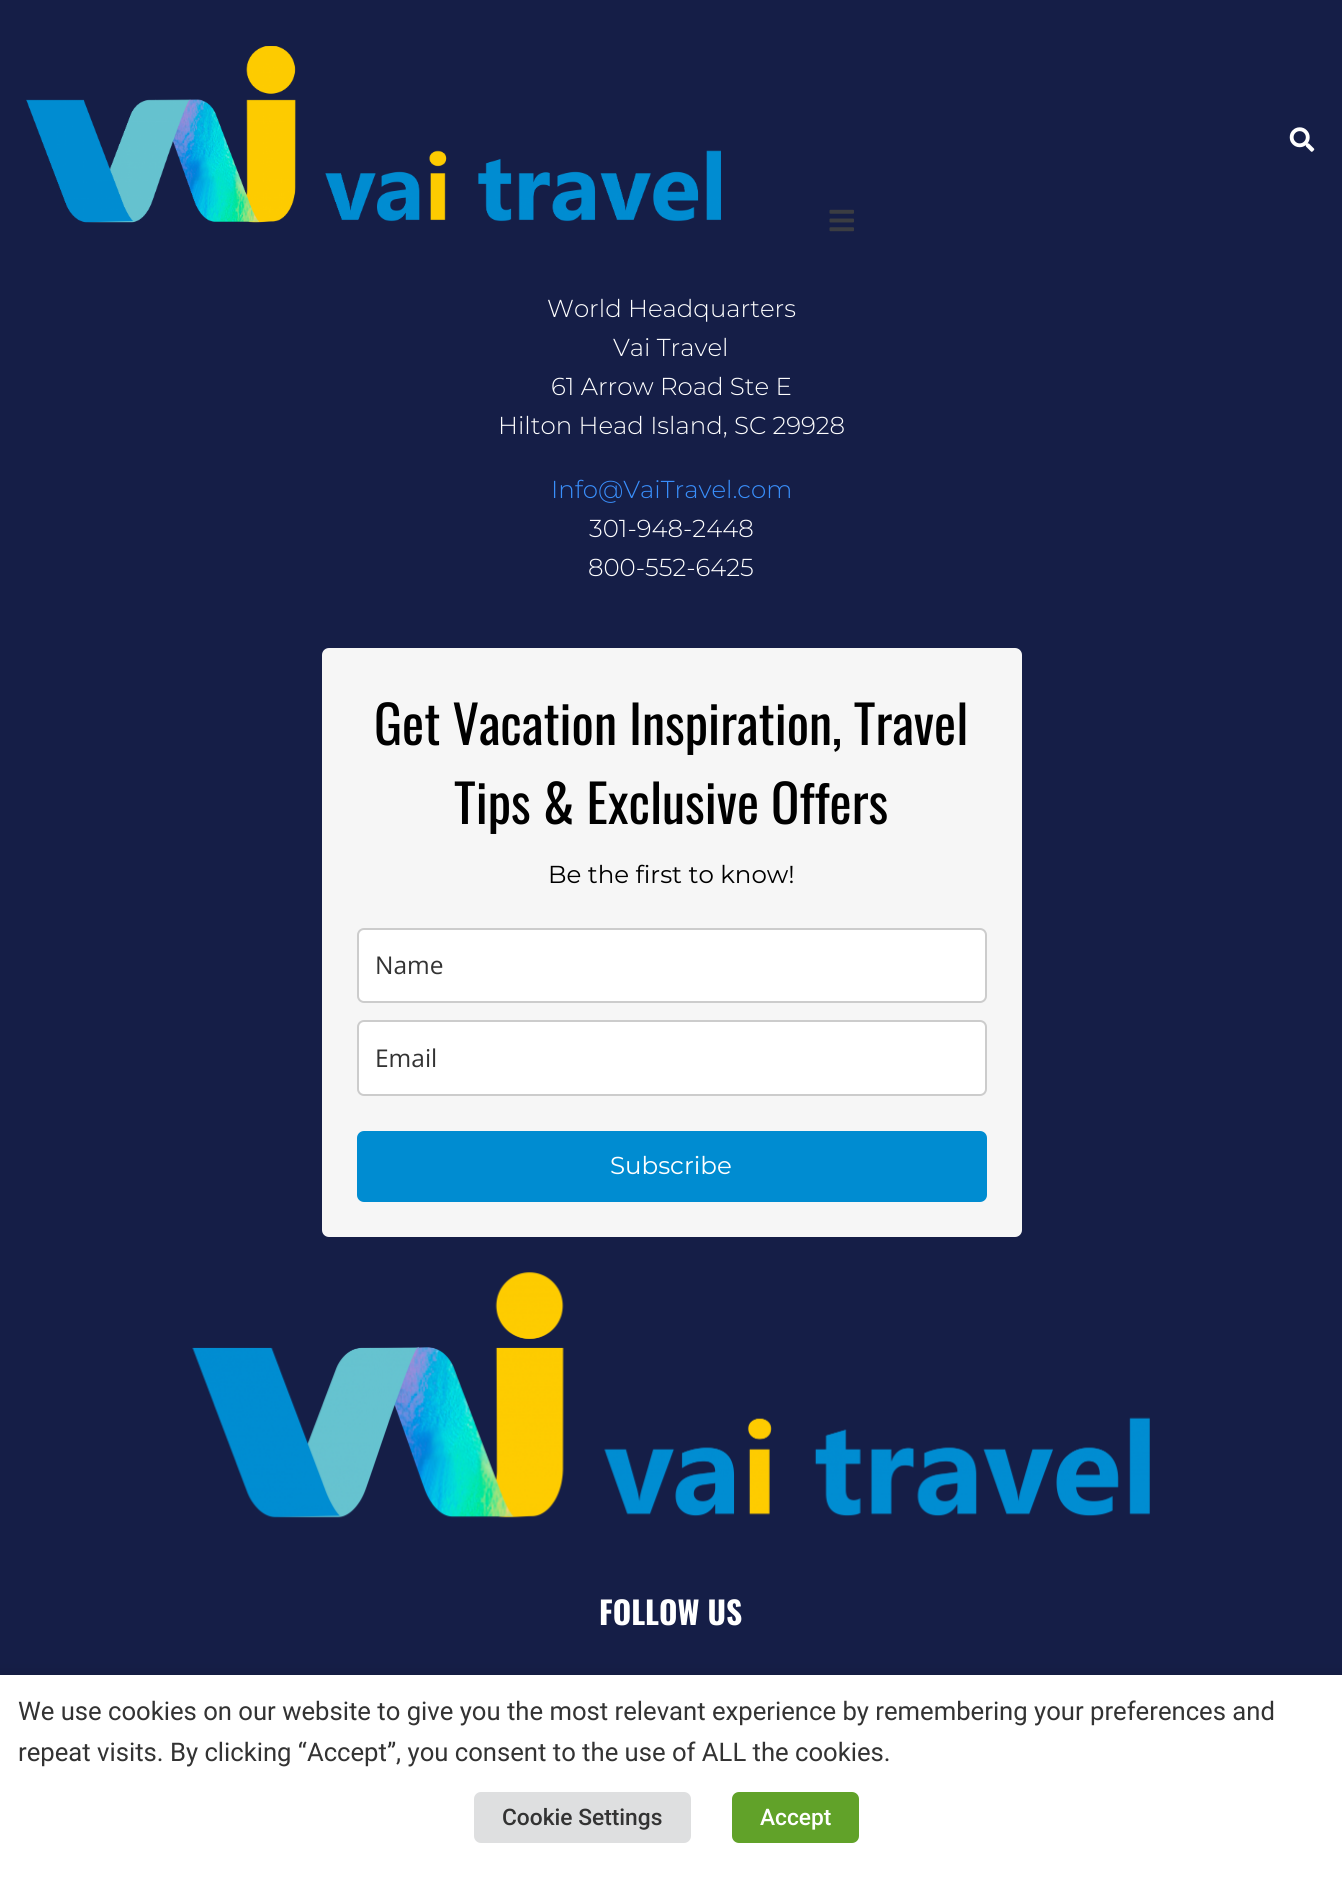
#include <cairo/cairo.h>
#include <math.h>
#include <stddef.h>

static cairo_t *cr;

static void use_color(int r, int g, int b) {
  cairo_set_source_rgb(cr, r / 255.0, g / 255.0, b / 255.0);
}

static void text(double x, double y, const char *s, const char *family, double size, int italic, int bold, int r, int g, int b) {
  cairo_select_font_face(cr, family, italic ? CAIRO_FONT_SLANT_ITALIC : CAIRO_FONT_SLANT_NORMAL,
    bold ? CAIRO_FONT_WEIGHT_BOLD : CAIRO_FONT_WEIGHT_NORMAL);
  cairo_set_font_size(cr, size);
  use_color(r, g, b);
  cairo_move_to(cr, x, y);
  cairo_show_text(cr, s);
}

static void box(double x, double y, double w, double h, int r, int g, int b) {
  use_color(r, g, b);
  cairo_rectangle(cr, x, y, w, h);
  cairo_fill(cr);
}

static void round_rect(double x, double y, double w, double h, double r) {
  cairo_new_sub_path(cr);
  cairo_arc(cr, x + w - r, y + h - r, r, 0, M_PI / 2);
  cairo_arc(cr, x + r, y + h - r, r, M_PI / 2, M_PI);
  cairo_arc(cr, x + r, y + r, r, M_PI, 1.5 * M_PI);
  cairo_arc(cr, x + w - r, y + r, r, 1.5 * M_PI, 2 * M_PI);
  cairo_close_path(cr);
}

static void shadow(double x, double y, double w, double h, double r, double blur, double alpha) {
  cairo_push_group_with_content(cr, CAIRO_CONTENT_ALPHA);
  cairo_set_operator(cr, CAIRO_OPERATOR_SOURCE);
  for (int i = 15; i >= -15 && fmin(w, h) + blur * i / 3 > 0; i -= 2) {
    double e = blur * i / 6;
    cairo_set_source_rgba(cr, 0, 0, 0, alpha * erfc((i - 1) / 8.5) / 2);
    round_rect(x - e, y - e, w + 2 * e, h + 2 * e, fmax(0, fmin(r + e + blur * .6, fmin(w, h) / 2 + e)));
    cairo_fill(cr);
  }
  cairo_pattern_t *soft = cairo_pop_group(cr);
  cairo_mask(cr, soft);
  cairo_pattern_destroy(soft);
}

static void picture(const char *path, double x, double y, double w, double h) {
  cairo_surface_t *image = cairo_image_surface_create_from_png(path);
  cairo_save(cr);
  cairo_set_source_surface(cr, image, x, y);
  cairo_rectangle(cr, x, y, w, h);
  cairo_fill(cr);
  cairo_restore(cr);
  cairo_surface_destroy(image);
}

static void draw(void) {
  use_color(21, 30, 71);
  cairo_paint(cr);
  picture("img_01.png", 26, 46, 695, 177);
  picture("img_02.png", 1289, 127, 26, 25);
  picture("img_03.png", 829, 209, 25, 23);
  use_color(246, 246, 246);
  round_rect(322, 648, 700, 589, 7);
  cairo_fill(cr);
  use_color(255, 255, 255);
  round_rect(358, 929, 628, 73, 6);
  cairo_fill_preserve(cr);
  use_color(204, 204, 204);
  cairo_stroke(cr);
  use_color(255, 255, 255);
  round_rect(358, 1021, 628, 74, 6);
  cairo_fill_preserve(cr);
  use_color(204, 204, 204);
  cairo_stroke(cr);
  use_color(0, 140, 209);
  round_rect(357, 1131, 630, 71, 7);
  cairo_fill(cr);
  picture("img_04.png", 192, 1272, 958, 246);
  use_color(0, 0, 0);
  shadow(0, 1684, 1342, 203, 0, 9, 0.5);
  box(0, 1675, 1342, 202, 255, 255, 255);
  use_color(222, 223, 224);
  round_rect(474, 1792, 217, 51, 7);
  cairo_fill(cr);
  use_color(97, 162, 41);
  round_rect(732, 1792, 127, 51, 7);
  cairo_fill(cr);
  text(547, 317, "World Headquarters", "Montserrat Light", 24.5, 0, 0, 255, 255, 255);
  text(613, 356, "Vai Travel", "Montserrat Light", 24.5, 0, 0, 255, 255, 255);
  text(551, 395, "61 Arrow Road Ste E", "Montserrat Light", 24.5, 0, 0, 255, 255, 255);
  text(498, 434, "Hilton Head Island, SC 29928", "Montserrat Light", 24.5, 0, 0, 255, 255, 255);
  text(551, 498, "Info@VaiTravel.com", "Montserrat Light", 24.5, 0, 0, 57, 143, 252);
  text(589, 537, "301-948-2448", "Montserrat Light", 24.5, 0, 0, 255, 255, 255);
  text(588, 576, "800-552-6425", "Montserrat Light", 24.5, 0, 0, 255, 255, 255);
  text(374, 745, "Get Vacation Inspiration, Travel", "Oswald", 52.5, 0, 0, 0, 0, 0);
  text(454, 824, "Tips & Exclusive Offers", "Oswald", 52.5, 0, 0, 0, 0, 0);
  text(548, 883, "Be the first to know!", "Montserrat", 24.5, 0, 0, 0, 0, 0);
  text(375, 974, "Name", "Open Sans", 24.5, 0, 0, 51, 51, 51);
  text(375, 1067, "Email", "Open Sans", 24.5, 0, 0, 51, 51, 51);
  text(610, 1174, "Subscribe", "Montserrat", 24.5, 0, 0, 255, 255, 255);
  text(599, 1625, "FOLLOW US", "Oswald", 31.5, 0, 1, 255, 255, 255);
  text(18, 1720, "We use cookies on our website to give you the most relevant experience by remembering your preferences and", "Roboto", 25.65, 0, 0, 51, 51, 51);
  text(18, 1761, "repeat visits. By clicking “Accept”, you consent to the use of ALL the cookies.", "Roboto", 25.65, 0, 0, 51, 51, 51);
  text(502, 1825, "Cookie Settings", "Roboto Medium", 22.75, 0, 0, 51, 51, 51);
  text(760, 1825, "Accept", "Roboto Medium", 22.75, 0, 0, 255, 255, 255);
}

int main(void) {
  cairo_surface_t *surface = cairo_image_surface_create(CAIRO_FORMAT_RGB24, 1342, 1877);
  cr = cairo_create(surface);
  cairo_font_options_t *options = cairo_font_options_create();
  cairo_font_options_set_hint_metrics(options, CAIRO_HINT_METRICS_OFF);
  cairo_font_options_set_hint_style(options, CAIRO_HINT_STYLE_NONE);
  cairo_set_font_options(cr, options);
  cairo_set_miter_limit(cr, 4);
  draw();
  cairo_surface_write_to_png(surface, "out.png");
  cairo_font_options_destroy(options);
  cairo_destroy(cr);
  cairo_surface_destroy(surface);
  return 0;
}
